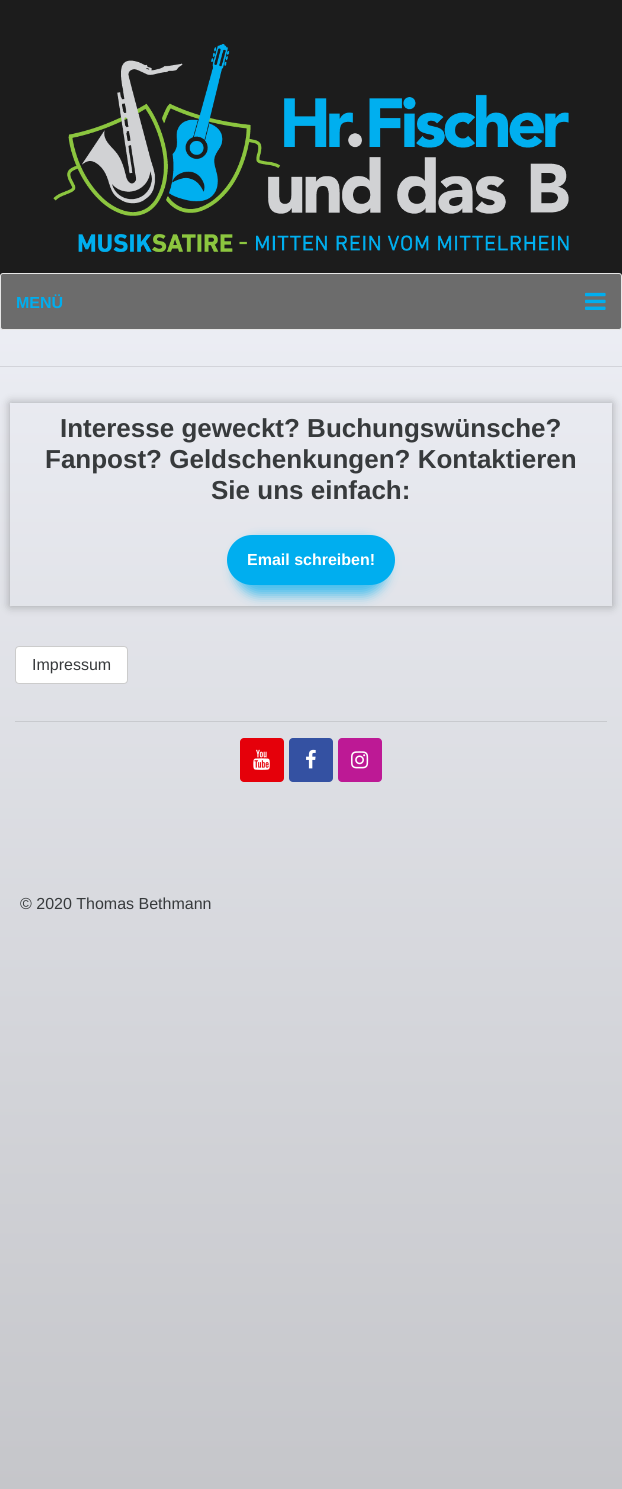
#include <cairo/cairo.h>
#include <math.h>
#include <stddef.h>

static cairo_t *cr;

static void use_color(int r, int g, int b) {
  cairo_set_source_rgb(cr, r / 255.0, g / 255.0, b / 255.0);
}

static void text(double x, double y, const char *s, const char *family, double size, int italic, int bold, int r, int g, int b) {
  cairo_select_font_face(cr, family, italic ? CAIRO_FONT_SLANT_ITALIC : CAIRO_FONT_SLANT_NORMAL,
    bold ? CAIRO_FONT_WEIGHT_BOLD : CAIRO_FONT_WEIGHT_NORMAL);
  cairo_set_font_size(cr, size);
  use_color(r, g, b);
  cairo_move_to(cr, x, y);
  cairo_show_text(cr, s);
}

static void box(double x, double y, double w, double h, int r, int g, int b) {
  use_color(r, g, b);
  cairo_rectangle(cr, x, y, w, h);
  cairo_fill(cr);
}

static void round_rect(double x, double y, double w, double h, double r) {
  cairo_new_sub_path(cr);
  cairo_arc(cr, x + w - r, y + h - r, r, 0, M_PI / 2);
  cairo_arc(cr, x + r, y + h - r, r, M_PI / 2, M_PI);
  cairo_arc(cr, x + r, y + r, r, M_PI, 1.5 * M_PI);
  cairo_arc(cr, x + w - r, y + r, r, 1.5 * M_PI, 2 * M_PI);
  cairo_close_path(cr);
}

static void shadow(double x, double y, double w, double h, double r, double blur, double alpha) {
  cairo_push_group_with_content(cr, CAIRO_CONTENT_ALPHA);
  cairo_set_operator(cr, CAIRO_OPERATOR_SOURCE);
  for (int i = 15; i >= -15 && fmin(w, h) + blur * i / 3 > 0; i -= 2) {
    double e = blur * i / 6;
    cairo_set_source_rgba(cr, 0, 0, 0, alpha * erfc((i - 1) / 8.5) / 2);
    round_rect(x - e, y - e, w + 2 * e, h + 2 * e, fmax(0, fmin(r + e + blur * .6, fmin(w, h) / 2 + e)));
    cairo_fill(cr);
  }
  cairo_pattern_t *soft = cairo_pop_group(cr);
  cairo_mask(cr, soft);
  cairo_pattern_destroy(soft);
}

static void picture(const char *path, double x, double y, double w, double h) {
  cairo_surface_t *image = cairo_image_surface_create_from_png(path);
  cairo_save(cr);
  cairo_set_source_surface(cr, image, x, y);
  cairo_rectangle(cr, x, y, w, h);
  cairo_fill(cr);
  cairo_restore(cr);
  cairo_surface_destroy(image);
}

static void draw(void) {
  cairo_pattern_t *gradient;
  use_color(255, 255, 255);
  cairo_paint(cr);
  gradient = cairo_pattern_create_linear(311, 1489, 311, 0);
  cairo_pattern_add_color_stop_rgba(gradient, 0, 0.773, 0.776, 0.792, 1);
  cairo_pattern_add_color_stop_rgba(gradient, 1, 0.965, 0.973, 1, 1);
  cairo_set_source(cr, gradient);
  cairo_pattern_destroy(gradient);
  cairo_rectangle(cr, 0, 327, 622, 1162);
  cairo_fill(cr);
  box(0, 0, 622, 276, 28, 28, 28);
  picture("img_01.png", 53, 44, 516, 208);
  use_color(108, 108, 108);
  round_rect(0.5, 273.5, 621, 56, 2.5);
  cairo_fill_preserve(cr);
  use_color(231, 231, 231);
  cairo_set_line_width(cr, 1);
  cairo_stroke(cr);
  picture("img_02.png", 585, 292, 21, 18);
  box(0, 366, 622, 1, 211, 212, 218);
  cairo_save(cr);
  cairo_set_fill_rule(cr, CAIRO_FILL_RULE_EVEN_ODD);
  cairo_new_path(cr);
  cairo_move_to(cr, 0, 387);
  cairo_line_to(cr, 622, 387);
  cairo_line_to(cr, 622, 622);
  cairo_line_to(cr, 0, 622);
  cairo_close_path(cr);
  cairo_move_to(cr, 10, 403);
  cairo_line_to(cr, 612, 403);
  cairo_line_to(cr, 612, 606);
  cairo_line_to(cr, 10, 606);
  cairo_close_path(cr);
  cairo_clip(cr);
  use_color(0, 0, 0);
  shadow(10, 403, 602, 203, 0, 5, 0.3);
  cairo_restore(cr);
  use_color(0, 174, 239);
  round_rect(227, 535, 168, 50, 25);
  cairo_fill(cr);
  use_color(0, 174, 239);
  shadow(235, 540, 152, 55, 27.5, 6, 0.7);
  use_color(255, 255, 255);
  round_rect(15.5, 646.5, 112, 37, 3.5);
  cairo_fill_preserve(cr);
  use_color(204, 204, 204);
  cairo_stroke(cr);
  box(15, 721, 592, 1, 200, 202, 206);
  use_color(229, 0, 10);
  round_rect(240, 738, 44, 44, 4);
  cairo_fill(cr);
  picture("img_03.png", 253, 749, 17, 21);
  use_color(52, 81, 162);
  round_rect(289, 738, 44, 44, 4);
  cairo_fill(cr);
  picture("img_04.png", 306, 749, 10, 20);
  use_color(189, 25, 149);
  round_rect(338, 738, 44, 44, 4);
  cairo_fill(cr);
  picture("img_05.png", 351, 751, 18, 18);
  text(16, 308, "MENÜ", "Liberation Sans", 16, 0, 1, 0, 174, 239);
  text(60, 437, "Interesse geweckt? Buchungswünsche?", "Liberation Sans", 26, 0, 1, 55, 58, 60);
  text(45, 468, "Fanpost? Geldschenkungen? Kontaktieren", "Liberation Sans", 26, 0, 1, 55, 58, 60);
  text(211, 499, "Sie uns einfach:", "Liberation Sans", 26, 0, 1, 55, 58, 60);
  text(247, 565, "Email schreiben!", "Liberation Sans", 16, 0, 1, 255, 255, 255);
  text(32, 670, "Impressum", "Liberation Sans", 16, 0, 0, 55, 58, 60);
  text(20, 909, "© 2020 Thomas Bethmann", "Liberation Sans", 16, 0, 0, 55, 58, 60);
}

int main(void) {
  cairo_surface_t *surface = cairo_image_surface_create(CAIRO_FORMAT_RGB24, 622, 1489);
  cr = cairo_create(surface);
  cairo_font_options_t *options = cairo_font_options_create();
  cairo_font_options_set_hint_metrics(options, CAIRO_HINT_METRICS_OFF);
  cairo_font_options_set_hint_style(options, CAIRO_HINT_STYLE_NONE);
  cairo_set_font_options(cr, options);
  cairo_set_miter_limit(cr, 4);
  draw();
  cairo_surface_write_to_png(surface, "out.png");
  cairo_font_options_destroy(options);
  cairo_destroy(cr);
  cairo_surface_destroy(surface);
  return 0;
}
